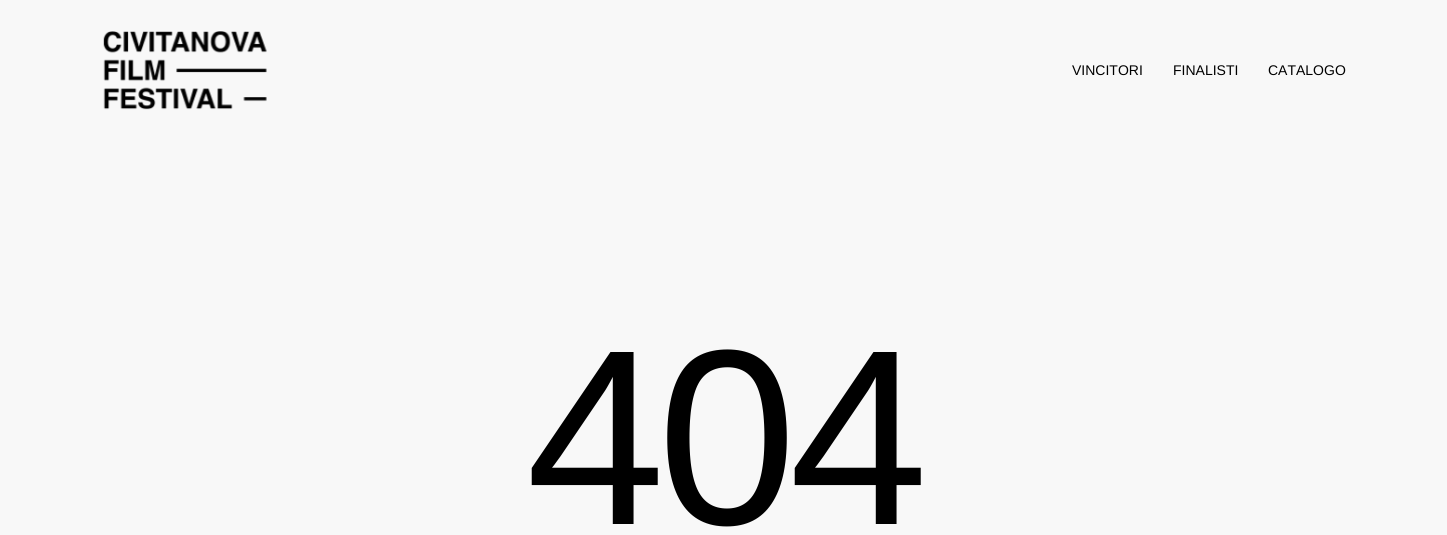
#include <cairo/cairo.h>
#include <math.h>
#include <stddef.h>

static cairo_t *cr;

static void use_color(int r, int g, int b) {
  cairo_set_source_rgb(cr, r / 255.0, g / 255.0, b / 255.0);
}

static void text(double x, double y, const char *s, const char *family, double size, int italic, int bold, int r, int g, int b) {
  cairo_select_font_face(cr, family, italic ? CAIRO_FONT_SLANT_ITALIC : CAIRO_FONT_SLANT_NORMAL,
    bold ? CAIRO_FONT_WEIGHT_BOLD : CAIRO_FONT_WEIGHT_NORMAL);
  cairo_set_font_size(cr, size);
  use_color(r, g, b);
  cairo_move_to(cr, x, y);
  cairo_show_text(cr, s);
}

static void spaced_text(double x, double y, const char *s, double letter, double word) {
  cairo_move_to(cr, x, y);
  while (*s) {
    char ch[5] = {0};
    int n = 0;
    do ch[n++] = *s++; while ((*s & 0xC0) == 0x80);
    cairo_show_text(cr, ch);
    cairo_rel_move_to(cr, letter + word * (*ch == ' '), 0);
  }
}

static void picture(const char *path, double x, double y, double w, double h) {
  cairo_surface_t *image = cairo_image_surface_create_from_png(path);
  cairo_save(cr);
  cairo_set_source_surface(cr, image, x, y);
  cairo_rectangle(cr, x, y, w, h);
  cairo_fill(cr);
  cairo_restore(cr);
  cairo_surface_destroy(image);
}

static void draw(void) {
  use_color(248, 248, 248);
  cairo_paint(cr);
  picture("img_01.png", 103, 31, 164, 79);
  text(1072, 75, "VINCITORI", "Liberation Sans", 14, 0, 0, 0, 0, 0);
  text(1173, 75, "FINALISTI", "Liberation Sans", 14, 0, 0, 0, 0, 0);
  text(1268, 75, "CATALOGO", "Liberation Sans", 14, 0, 0, 0, 0, 0);
  cairo_set_font_size(cr, 250);
  spaced_text(526, 524, "404", -7.5, 0);
}

int main(void) {
  cairo_surface_t *surface = cairo_image_surface_create(CAIRO_FORMAT_RGB24, 1447, 535);
  cr = cairo_create(surface);
  cairo_font_options_t *options = cairo_font_options_create();
  cairo_font_options_set_hint_metrics(options, CAIRO_HINT_METRICS_OFF);
  cairo_font_options_set_hint_style(options, CAIRO_HINT_STYLE_NONE);
  cairo_set_font_options(cr, options);
  cairo_set_miter_limit(cr, 4);
  draw();
  cairo_surface_write_to_png(surface, "out.png");
  cairo_font_options_destroy(options);
  cairo_destroy(cr);
  cairo_surface_destroy(surface);
  return 0;
}
